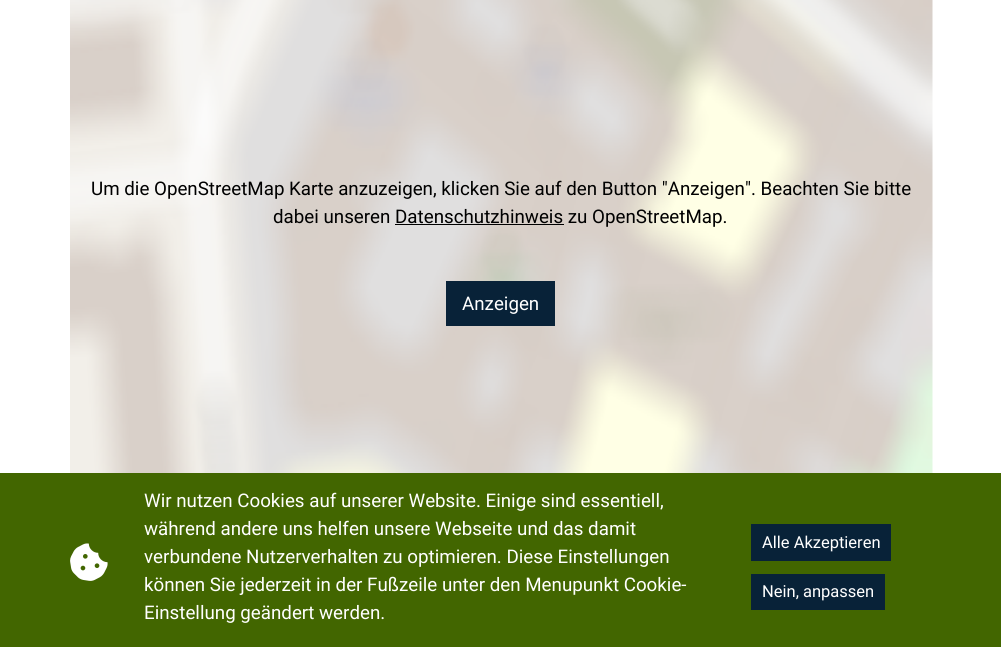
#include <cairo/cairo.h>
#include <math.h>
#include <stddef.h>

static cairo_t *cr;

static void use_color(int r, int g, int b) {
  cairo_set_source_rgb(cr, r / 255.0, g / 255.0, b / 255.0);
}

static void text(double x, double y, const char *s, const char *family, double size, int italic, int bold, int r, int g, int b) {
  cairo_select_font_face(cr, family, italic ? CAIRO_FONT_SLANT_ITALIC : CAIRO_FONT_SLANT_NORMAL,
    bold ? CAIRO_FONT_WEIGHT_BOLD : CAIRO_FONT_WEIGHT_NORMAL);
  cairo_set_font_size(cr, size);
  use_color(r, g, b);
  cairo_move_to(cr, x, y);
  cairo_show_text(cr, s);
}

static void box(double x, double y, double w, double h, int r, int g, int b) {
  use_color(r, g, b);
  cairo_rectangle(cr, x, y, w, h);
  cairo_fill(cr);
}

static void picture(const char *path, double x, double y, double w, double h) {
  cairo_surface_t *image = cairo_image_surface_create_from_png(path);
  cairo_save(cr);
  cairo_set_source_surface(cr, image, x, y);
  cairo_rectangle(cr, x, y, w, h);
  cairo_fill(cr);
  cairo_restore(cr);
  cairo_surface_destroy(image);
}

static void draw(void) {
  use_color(255, 255, 255);
  cairo_paint(cr);
  picture("img_01.png", 70, 0, 863, 473);
  box(395, 224, 169, 1, 0, 0, 0);
  box(446, 281, 109, 45, 8, 34, 56);
  box(0, 473, 1001, 174, 66, 102, 0);
  picture("img_02.png", 70, 543, 38, 38);
  box(751, 524, 140, 37, 8, 34, 56);
  box(751, 574, 134, 36, 8, 34, 56);
  text(91, 195, "Um die OpenStreetMap Karte anzuzeigen, klicken Sie auf den Button \"Anzeigen\". Beachten Sie bitte", "Roboto", 18.75, 0, 0, 0, 0, 0);
  text(273, 223, "dabei unseren Datenschutzhinweis zu OpenStreetMap.", "Roboto", 18.75, 0, 0, 0, 0, 0);
  text(462, 310, "Anzeigen", "Roboto", 18.75, 0, 0, 255, 255, 255);
  text(144, 507, "Wir nutzen Cookies auf unserer Website. Einige sind essentiell,", "Roboto", 18.75, 0, 0, 255, 255, 255);
  text(144, 535, "während andere uns helfen unsere Webseite und das damit", "Roboto", 18.75, 0, 0, 255, 255, 255);
  text(144, 563, "verbundene Nutzerverhalten zu optimieren. Diese Einstellungen", "Roboto", 18.75, 0, 0, 255, 255, 255);
  text(144, 591, "können Sie jederzeit in der Fußzeile unter den Menupunkt Cookie-", "Roboto", 18.75, 0, 0, 255, 255, 255);
  text(144, 619, "Einstellung geändert werden.", "Roboto", 18.75, 0, 0, 255, 255, 255);
  text(762, 548, "Alle Akzeptieren", "Roboto", 16.5, 0, 0, 255, 255, 255);
  text(762, 597, "Nein, anpassen", "Roboto", 16.5, 0, 0, 255, 255, 255);
}

int main(void) {
  cairo_surface_t *surface = cairo_image_surface_create(CAIRO_FORMAT_RGB24, 1001, 647);
  cr = cairo_create(surface);
  cairo_font_options_t *options = cairo_font_options_create();
  cairo_font_options_set_hint_metrics(options, CAIRO_HINT_METRICS_OFF);
  cairo_font_options_set_hint_style(options, CAIRO_HINT_STYLE_NONE);
  cairo_set_font_options(cr, options);
  cairo_set_miter_limit(cr, 4);
  draw();
  cairo_surface_write_to_png(surface, "out.png");
  cairo_font_options_destroy(options);
  cairo_destroy(cr);
  cairo_surface_destroy(surface);
  return 0;
}
